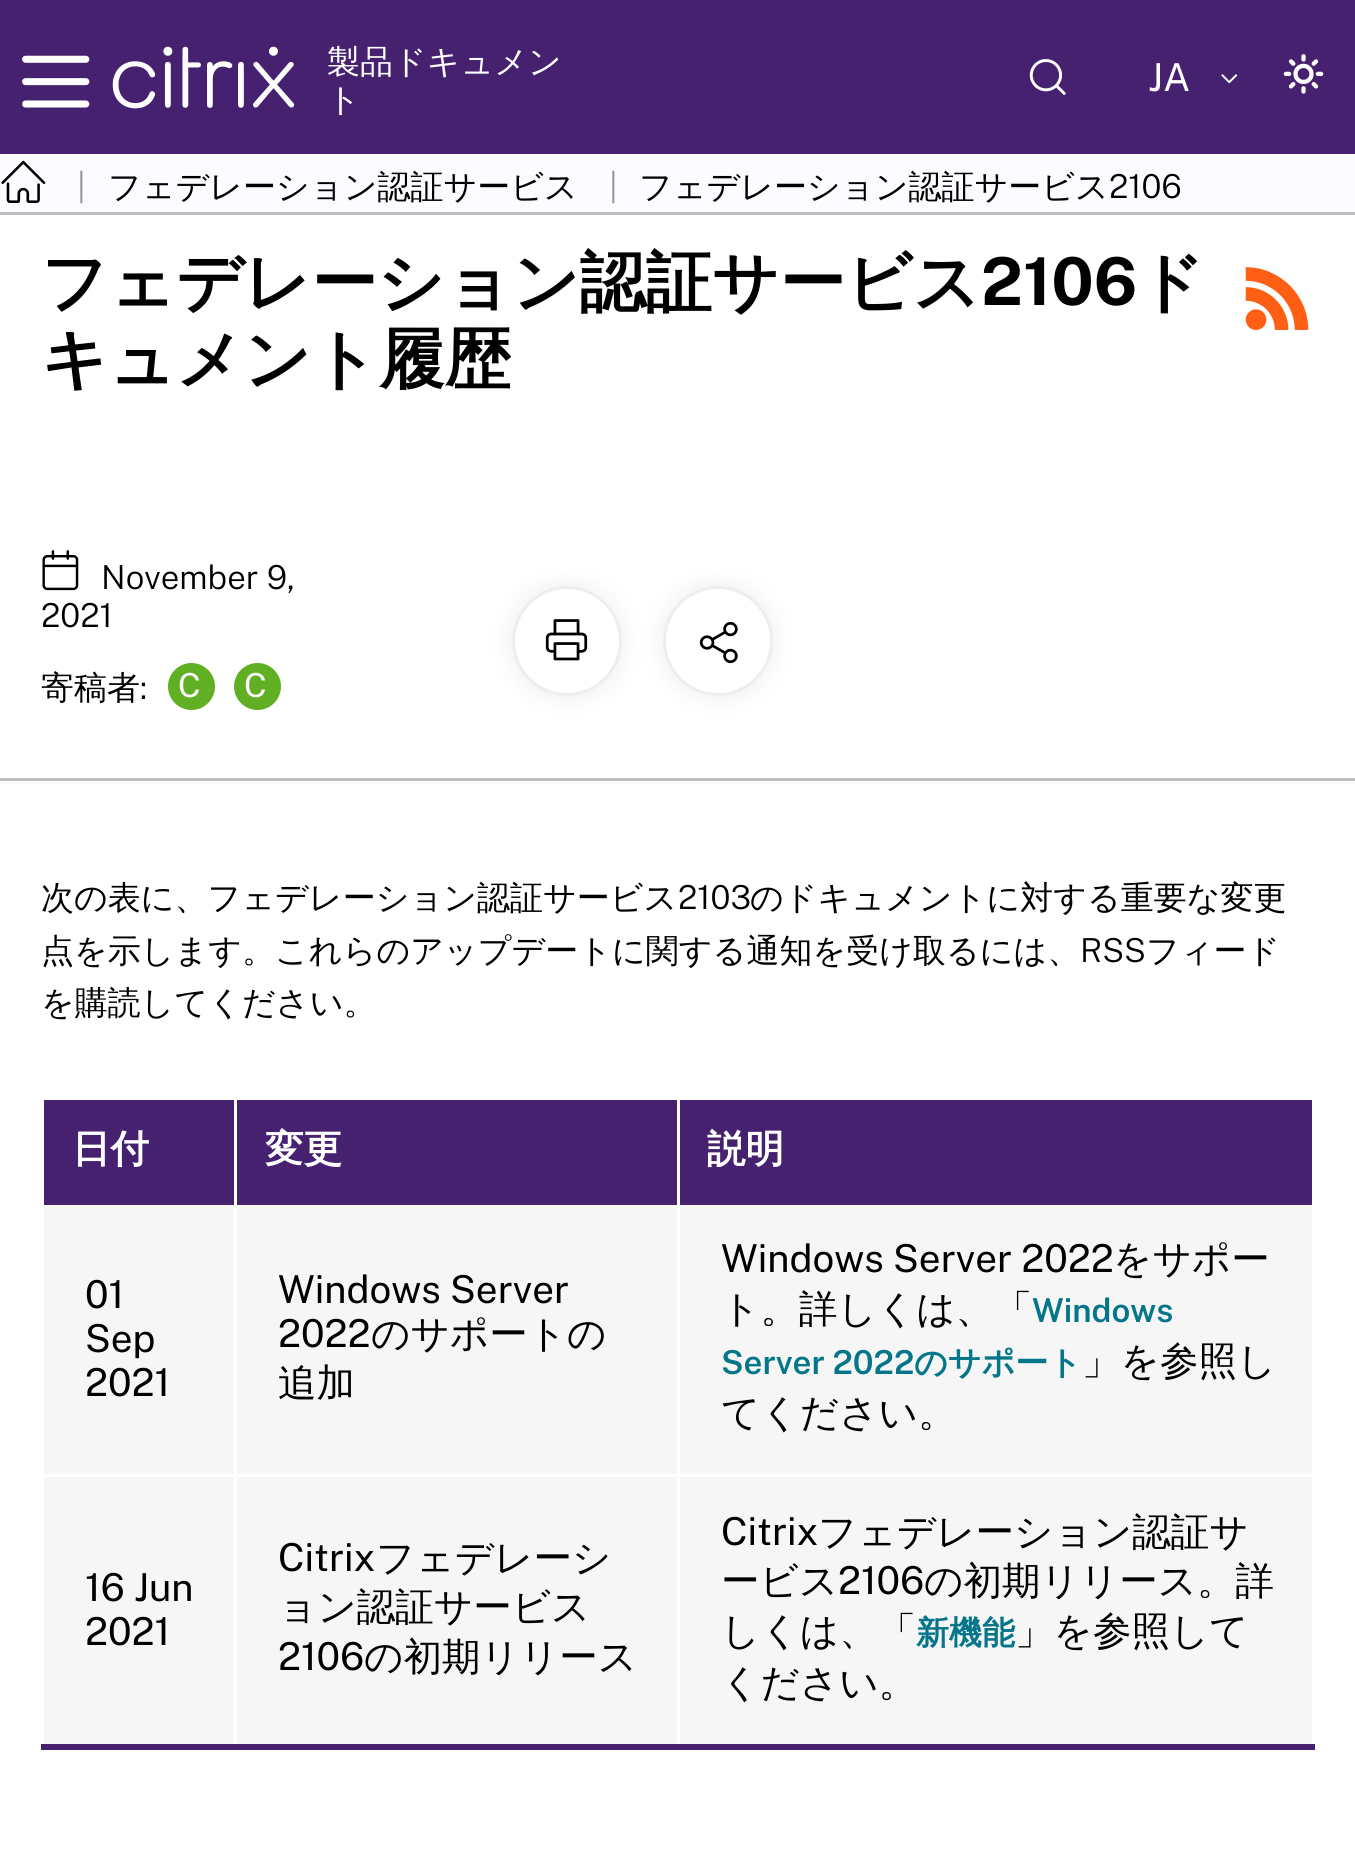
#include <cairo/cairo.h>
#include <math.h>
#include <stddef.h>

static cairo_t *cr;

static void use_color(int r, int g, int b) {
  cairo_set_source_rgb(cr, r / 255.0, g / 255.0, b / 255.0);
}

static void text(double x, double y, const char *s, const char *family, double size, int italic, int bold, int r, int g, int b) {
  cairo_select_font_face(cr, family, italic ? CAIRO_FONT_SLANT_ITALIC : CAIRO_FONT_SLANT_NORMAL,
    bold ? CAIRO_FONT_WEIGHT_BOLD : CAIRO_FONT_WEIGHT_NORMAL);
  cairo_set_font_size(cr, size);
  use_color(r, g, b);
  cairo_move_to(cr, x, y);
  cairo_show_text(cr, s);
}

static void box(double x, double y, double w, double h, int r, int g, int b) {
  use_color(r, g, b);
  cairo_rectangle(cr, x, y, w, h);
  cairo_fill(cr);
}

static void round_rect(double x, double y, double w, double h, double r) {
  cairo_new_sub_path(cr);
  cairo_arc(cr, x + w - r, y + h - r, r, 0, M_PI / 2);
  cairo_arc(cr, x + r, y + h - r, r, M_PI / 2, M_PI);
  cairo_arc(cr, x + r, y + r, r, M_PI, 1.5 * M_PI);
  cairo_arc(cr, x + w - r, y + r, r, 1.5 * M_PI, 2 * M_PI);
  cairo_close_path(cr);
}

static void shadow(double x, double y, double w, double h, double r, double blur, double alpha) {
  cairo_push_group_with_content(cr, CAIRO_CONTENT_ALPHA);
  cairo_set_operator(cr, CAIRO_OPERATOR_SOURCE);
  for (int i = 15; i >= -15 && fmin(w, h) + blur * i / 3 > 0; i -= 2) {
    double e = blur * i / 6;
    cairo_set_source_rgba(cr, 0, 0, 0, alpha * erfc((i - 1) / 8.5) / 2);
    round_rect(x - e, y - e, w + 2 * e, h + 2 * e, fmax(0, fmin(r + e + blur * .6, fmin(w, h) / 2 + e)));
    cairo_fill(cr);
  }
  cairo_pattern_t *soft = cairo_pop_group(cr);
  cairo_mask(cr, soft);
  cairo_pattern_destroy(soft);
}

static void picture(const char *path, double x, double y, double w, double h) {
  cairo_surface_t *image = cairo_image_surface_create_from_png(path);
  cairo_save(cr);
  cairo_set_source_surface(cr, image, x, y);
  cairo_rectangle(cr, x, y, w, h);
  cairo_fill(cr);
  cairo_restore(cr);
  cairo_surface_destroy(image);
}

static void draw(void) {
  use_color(255, 255, 255);
  cairo_paint(cr);
  box(0, 0, 1355, 154, 69, 33, 112);
  picture("img_01.png", 22, 55, 68, 53);
  picture("img_02.png", 112, 46, 183, 63);
  picture("img_03.png", 1029, 59, 37, 36);
  picture("img_04.png", 1221, 74, 17, 10);
  picture("img_05.png", 1283, 54, 41, 40);
  box(0, 157, 1355, 55, 252, 251, 255);
  box(0, 212, 1355, 3, 190, 190, 190);
  picture("img_06.png", 1, 160, 45, 43);
  picture("img_07.png", 1245, 267, 64, 63);
  box(0, 778, 1355, 3, 190, 190, 190);
  picture("img_08.png", 42, 550, 37, 41);
  use_color(97, 176, 36);
  cairo_arc(cr, 191.5, 686.5, 23.5, 0, 2 * M_PI);
  cairo_fill(cr);
  cairo_arc(cr, 257.5, 686.5, 23.5, 0, 2 * M_PI);
  cairo_fill(cr);
  use_color(0, 0, 0);
  shadow(512, 586, 110, 110, 55, 14, 0.07);
  use_color(255, 255, 255);
  cairo_arc(cr, 567, 641, 55, 0, 2 * M_PI);
  cairo_fill(cr);
  cairo_arc(cr, 567, 641, 53.5, 0, 2 * M_PI);
  cairo_set_source_rgba(cr, 0, 0, 0, 0.07);
  cairo_set_line_width(cr, 3);
  cairo_stroke(cr);
  picture("img_09.png", 545, 619, 43, 42);
  use_color(0, 0, 0);
  shadow(663, 586, 110, 110, 55, 14, 0.07);
  use_color(255, 255, 255);
  cairo_arc(cr, 718, 641, 55, 0, 2 * M_PI);
  cairo_fill(cr);
  cairo_arc(cr, 718, 641, 53.5, 0, 2 * M_PI);
  cairo_set_source_rgba(cr, 0, 0, 0, 0.07);
  cairo_stroke(cr);
  picture("img_10.png", 699, 621, 39, 43);
  box(0, 781, 1355, 3, 252, 251, 255);
  box(44, 1100, 1268, 105, 69, 33, 112);
  box(44, 1205, 1268, 269, 246, 246, 246);
  box(44, 1477, 1268, 267, 246, 246, 246);
  box(234, 1097, 3, 649, 255, 255, 255);
  box(677, 1097, 3, 649, 255, 255, 255);
  box(41, 1744, 1274, 6, 69, 33, 112);
  text(327, 73, "製品ドキュメン", "WenQuanYi Zen Hei Medium", 33, 0, 0, 255, 255, 255);
  text(327, 111, "ト", "WenQuanYi Zen Hei Medium", 33, 0, 0, 255, 255, 255);
  text(1148, 91, "JA", "Public Sans", 38.5, 0, 0, 255, 255, 255);
  text(77, 198, "|", "Public Sans Light", 33, 0, 0, 151, 151, 153);
  text(108, 198, "フェデレーション認証サービス", "WenQuanYi Zen Hei Medium", 33, 0, 0, 0, 0, 0);
  text(609, 198, "|", "Public Sans Light", 33, 0, 0, 151, 151, 153);
  text(639, 198, "フェデレーション認証サービス", "WenQuanYi Zen Hei Medium", 33, 0, 0, 0, 0, 0);
  text(1109, 198, "2106", "Public Sans Light", 33, 0, 0, 0, 0, 0);
  text(41, 305, "フェデレーション認証サービス", "WenQuanYi Zen Hei", 66, 0, 1, 0, 0, 0);
  text(981, 305, "2106", "Public Sans", 66, 0, 1, 0, 0, 0);
  text(1137, 305, "ド", "WenQuanYi Zen Hei", 66, 0, 1, 0, 0, 0);
  text(41, 382, "キュメント履歴", "WenQuanYi Zen Hei", 66, 0, 1, 0, 0, 0);
  text(101, 589, "November 9,", "Public Sans Light", 33, 0, 0, 0, 0, 0);
  text(41, 627, "2021", "Public Sans Light", 33, 0, 0, 0, 0, 0);
  text(41, 699, "寄稿者", "WenQuanYi Zen Hei Medium", 33, 0, 0, 0, 0, 0);
  text(140, 699, ":", "Public Sans Light", 33, 0, 0, 0, 0, 0);
  text(178, 697, "C", "Public Sans", 33, 0, 0, 255, 255, 255);
  text(244, 697, "C", "Public Sans", 33, 0, 0, 255, 255, 255);
  text(41, 909, "次の表に、フェデレーション認証サービス", "WenQuanYi Zen Hei Medium", 33, 0, 0, 0, 0, 0);
  text(678, 909, "2103", "Public Sans Light", 33, 0, 0, 0, 0, 0);
  text(750, 909, "のドキュメントに対する重要な変更", "WenQuanYi Zen Hei Medium", 33, 0, 0, 0, 0, 0);
  text(41, 962, "点を示します。これらのアップデートに関する通知を受け取るには、", "WenQuanYi Zen Hei Medium", 33, 0, 0, 0, 0, 0);
  text(1080, 962, "RSS", "Public Sans Light", 33, 0, 0, 0, 0, 0);
  text(1146, 962, "フィード", "WenQuanYi Zen Hei Medium", 33, 0, 0, 0, 0, 0);
  text(41, 1014, "を購読してください。", "WenQuanYi Zen Hei Medium", 33, 0, 0, 0, 0, 0);
  text(72, 1162, "日付", "WenQuanYi Zen Hei", 38.5, 0, 1, 255, 255, 255);
  text(265, 1162, "変更", "WenQuanYi Zen Hei", 38.5, 0, 1, 255, 255, 255);
  text(707, 1162, "説明", "WenQuanYi Zen Hei", 38.5, 0, 1, 255, 255, 255);
  text(85, 1308, "01", "Public Sans", 38.5, 0, 0, 0, 0, 0);
  text(85, 1352, "Sep", "Public Sans", 38.5, 0, 0, 0, 0, 0);
  text(85, 1396, "2021", "Public Sans", 38.5, 0, 0, 0, 0, 0);
  text(278, 1303, "Windows Server", "Public Sans", 38.5, 0, 0, 0, 0, 0);
  text(278, 1347, "2022", "Public Sans", 38.5, 0, 0, 0, 0, 0);
  text(371, 1347, "のサポートの", "WenQuanYi Zen Hei Medium", 38.5, 0, 0, 0, 0, 0);
  text(278, 1396, "追加", "WenQuanYi Zen Hei Medium", 38.5, 0, 0, 0, 0, 0);
  text(721, 1272, "Windows Server 2022", "Public Sans", 38.5, 0, 0, 0, 0, 0);
  text(1113, 1272, "をサポー", "WenQuanYi Zen Hei Medium", 38.5, 0, 0, 0, 0, 0);
  text(721, 1322, "ト。詳しくは、「", "WenQuanYi Zen Hei Medium", 38.5, 0, 0, 0, 0, 0);
  text(1032, 1322, "Windows", "Public Sans SemiBold", 33, 0, 0, 5, 117, 138);
  text(721, 1374, "Server 2022", "Public Sans SemiBold", 33, 0, 0, 5, 117, 138);
  text(914, 1374, "のサポート", "WenQuanYi Zen Hei", 33, 0, 1, 5, 117, 138);
  text(1082, 1374, "」を参照し", "WenQuanYi Zen Hei Medium", 38.5, 0, 0, 0, 0, 0);
  text(721, 1426, "てください。", "WenQuanYi Zen Hei Medium", 38.5, 0, 0, 0, 0, 0);
  text(85, 1601, "16 Jun", "Public Sans", 38.5, 0, 0, 0, 0, 0);
  text(85, 1645, "2021", "Public Sans", 38.5, 0, 0, 0, 0, 0);
  text(278, 1571, "Citrix", "Public Sans", 38.5, 0, 0, 0, 0, 0);
  text(376, 1571, "フェデレーシ", "WenQuanYi Zen Hei Medium", 38.5, 0, 0, 0, 0, 0);
  text(278, 1620, "ョン認証サービス", "WenQuanYi Zen Hei Medium", 38.5, 0, 0, 0, 0, 0);
  text(278, 1670, "2106", "Public Sans", 38.5, 0, 0, 0, 0, 0);
  text(364, 1670, "の初期リリース", "WenQuanYi Zen Hei Medium", 38.5, 0, 0, 0, 0, 0);
  text(721, 1545, "Citrix", "Public Sans", 38.5, 0, 0, 0, 0, 0);
  text(818, 1545, "フェデレーション認証サ", "WenQuanYi Zen Hei Medium", 38.5, 0, 0, 0, 0, 0);
  text(721, 1594, "ービス", "WenQuanYi Zen Hei Medium", 38.5, 0, 0, 0, 0, 0);
  text(838, 1594, "2106", "Public Sans", 38.5, 0, 0, 0, 0, 0);
  text(924, 1594, "の初期リリース。詳", "WenQuanYi Zen Hei Medium", 38.5, 0, 0, 0, 0, 0);
  text(721, 1644, "しくは、「", "WenQuanYi Zen Hei Medium", 38.5, 0, 0, 0, 0, 0);
  text(916, 1644, "新機能", "WenQuanYi Zen Hei", 33, 0, 1, 5, 117, 138);
  text(1015, 1644, "」を参照して", "WenQuanYi Zen Hei Medium", 38.5, 0, 0, 0, 0, 0);
  text(721, 1696, "ください。", "WenQuanYi Zen Hei Medium", 38.5, 0, 0, 0, 0, 0);
}

int main(void) {
  cairo_surface_t *surface = cairo_image_surface_create(CAIRO_FORMAT_RGB24, 1355, 1870);
  cr = cairo_create(surface);
  cairo_font_options_t *options = cairo_font_options_create();
  cairo_font_options_set_hint_metrics(options, CAIRO_HINT_METRICS_OFF);
  cairo_font_options_set_hint_style(options, CAIRO_HINT_STYLE_NONE);
  cairo_set_font_options(cr, options);
  cairo_set_miter_limit(cr, 4);
  draw();
  cairo_surface_write_to_png(surface, "out.png");
  cairo_font_options_destroy(options);
  cairo_destroy(cr);
  cairo_surface_destroy(surface);
  return 0;
}
